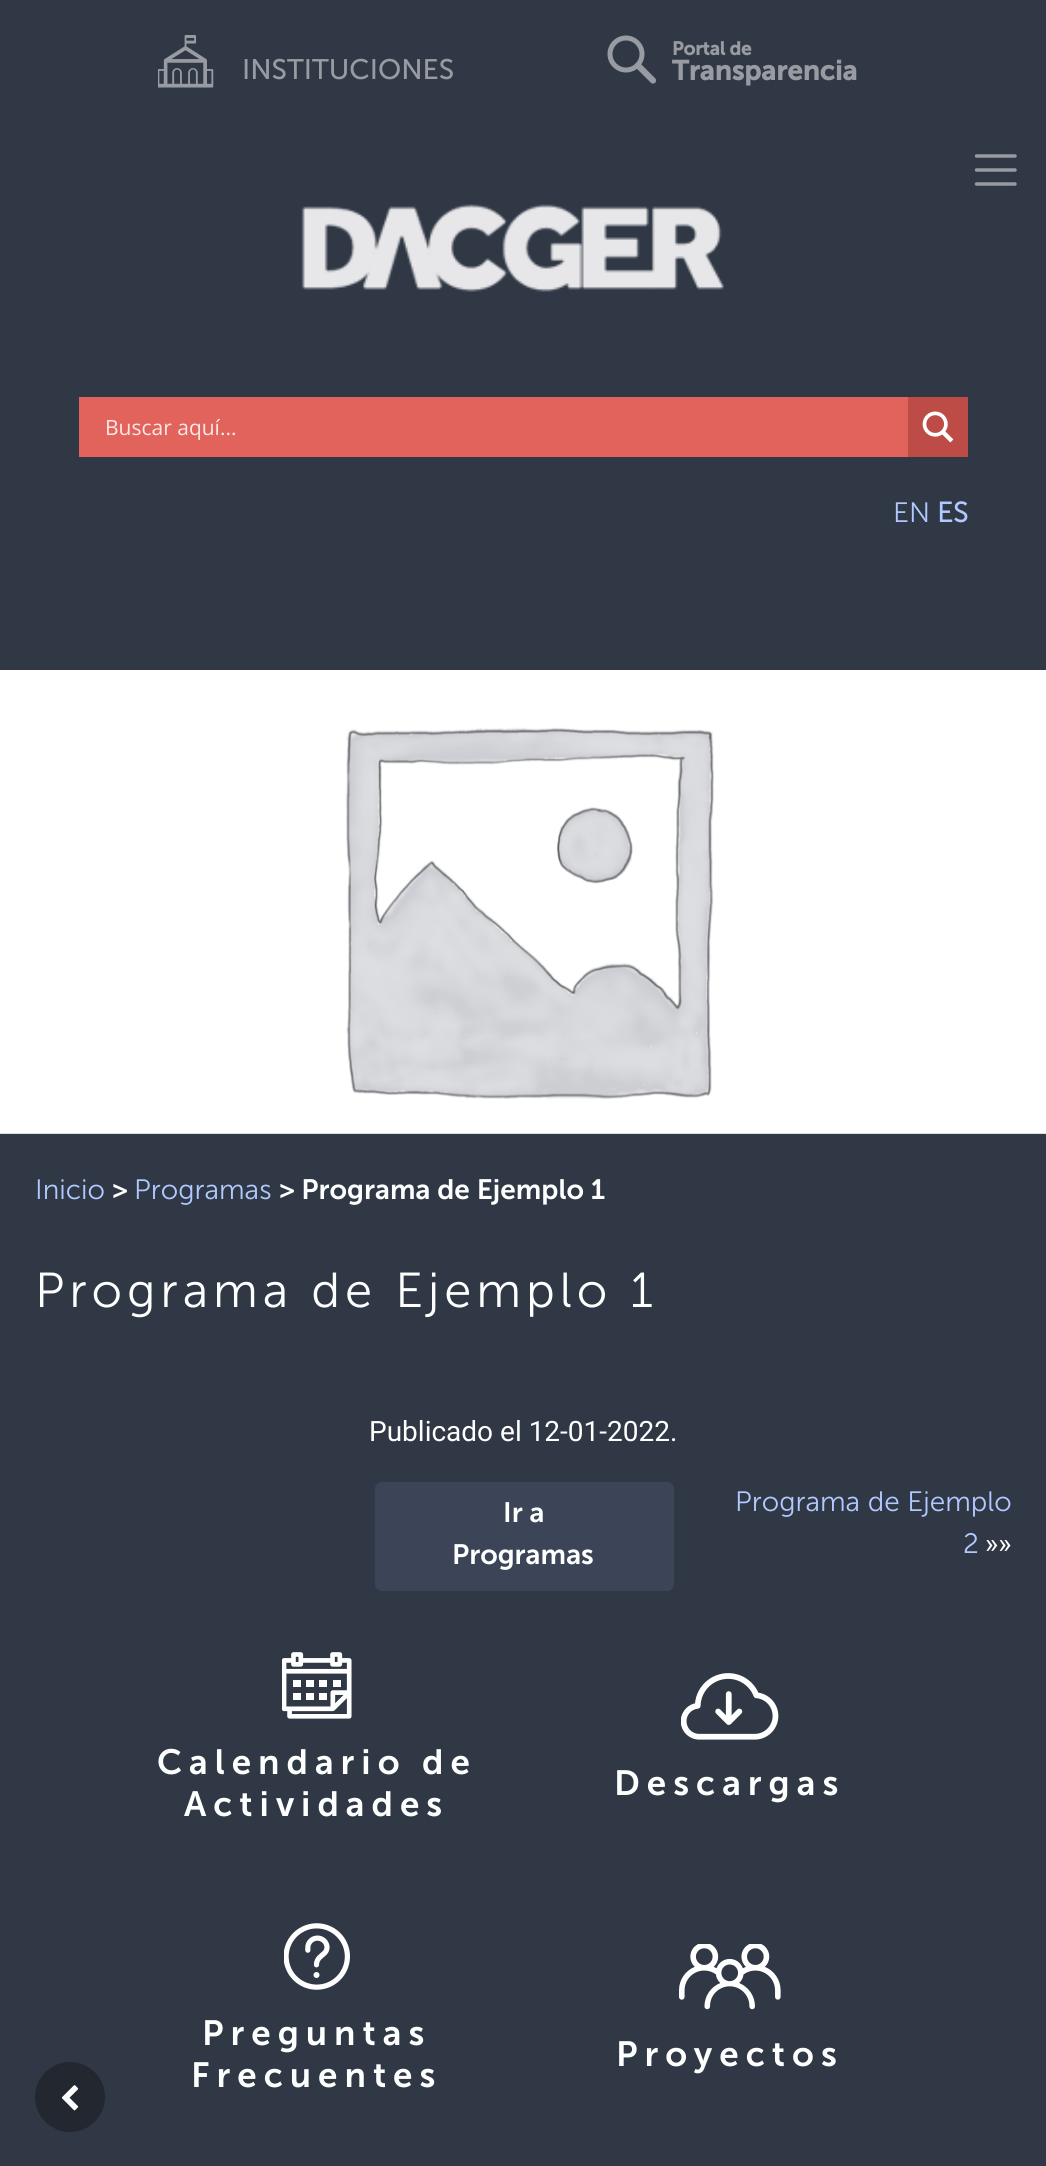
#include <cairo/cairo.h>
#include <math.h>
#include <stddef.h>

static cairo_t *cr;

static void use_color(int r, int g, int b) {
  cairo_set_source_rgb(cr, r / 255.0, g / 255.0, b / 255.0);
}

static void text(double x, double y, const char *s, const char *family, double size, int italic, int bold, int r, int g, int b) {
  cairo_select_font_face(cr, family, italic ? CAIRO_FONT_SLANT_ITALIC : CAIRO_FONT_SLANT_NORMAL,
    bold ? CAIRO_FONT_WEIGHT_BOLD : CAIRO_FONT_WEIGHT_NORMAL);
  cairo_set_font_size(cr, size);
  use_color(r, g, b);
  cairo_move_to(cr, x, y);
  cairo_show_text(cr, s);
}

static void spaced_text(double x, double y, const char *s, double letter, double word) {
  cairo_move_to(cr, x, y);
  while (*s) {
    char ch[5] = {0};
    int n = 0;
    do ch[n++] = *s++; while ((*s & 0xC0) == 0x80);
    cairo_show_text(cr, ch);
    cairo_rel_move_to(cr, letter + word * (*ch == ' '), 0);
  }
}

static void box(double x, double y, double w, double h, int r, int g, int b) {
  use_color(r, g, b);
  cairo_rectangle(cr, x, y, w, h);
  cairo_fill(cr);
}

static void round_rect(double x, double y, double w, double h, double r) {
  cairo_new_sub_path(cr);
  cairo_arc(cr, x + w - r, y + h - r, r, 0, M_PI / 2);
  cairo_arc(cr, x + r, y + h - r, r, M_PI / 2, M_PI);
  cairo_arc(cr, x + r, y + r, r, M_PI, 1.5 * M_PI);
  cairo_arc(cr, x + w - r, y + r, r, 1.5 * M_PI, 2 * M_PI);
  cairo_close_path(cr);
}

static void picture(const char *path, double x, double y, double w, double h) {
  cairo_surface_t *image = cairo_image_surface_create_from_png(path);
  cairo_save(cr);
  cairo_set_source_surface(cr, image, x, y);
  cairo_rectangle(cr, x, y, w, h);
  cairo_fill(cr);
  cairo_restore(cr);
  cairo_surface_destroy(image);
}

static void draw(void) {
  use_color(48, 56, 69);
  cairo_paint(cr);
  picture("img_01.png", 158, 35, 56, 53);
  cairo_arc(cr, 626, 54, 16, 0, 2 * M_PI);
  use_color(152, 156, 162);
  cairo_set_line_width(cr, 5);
  cairo_stroke(cr);
  cairo_new_path(cr);
  cairo_move_to(cr, 638, 65.5);
  cairo_line_to(cr, 653, 80.5);
  cairo_set_line_width(cr, 6.2);
  cairo_set_line_cap(cr, CAIRO_LINE_CAP_ROUND);
  cairo_stroke(cr);
  picture("img_02.png", 301, 204, 423, 88);
  box(79, 397, 829, 60, 225, 99, 92);
  box(908, 397, 60, 60, 190, 76, 70);
  picture("img_03.png", 922, 411, 32, 32);
  cairo_new_path(cr);
  cairo_move_to(cr, 976.5, 156);
  cairo_line_to(cr, 1015, 156);
  cairo_move_to(cr, 976.5, 170);
  cairo_line_to(cr, 1015, 170);
  cairo_move_to(cr, 976.5, 184);
  cairo_line_to(cr, 1015, 184);
  use_color(152, 156, 162);
  cairo_set_line_width(cr, 3.5);
  cairo_stroke(cr);
  picture("img_04.png", 0, 670, 1046, 464);
  use_color(60, 69, 87);
  round_rect(375, 1482, 299, 109, 7);
  cairo_fill(cr);
  picture("img_05.png", 282, 1652, 70, 67);
  picture("img_06.png", 681, 1673, 98, 67);
  picture("img_07.png", 284, 1923, 66, 67);
  picture("img_08.png", 679, 1944, 102, 66);
  use_color(34, 39, 48);
  cairo_arc(cr, 70, 2097, 35, 0, 2 * M_PI);
  cairo_fill(cr);
  picture("img_09.png", 61, 2085, 18, 26);
  text(242, 79, "INSTITUCIONES", "Museo Sans", 28.25, 0, 0, 152, 156, 162);
  text(672, 55, "Portal de", "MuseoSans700", 18.75, 0, 1, 152, 156, 162);
  cairo_set_font_size(cr, 27.5);
  spaced_text(672, 80, "Transparencia", 0.2, 0);
  text(105, 435, "Buscar aquí...", "Open Sans", 21, 0, 0, 251, 232, 231);
  text(893, 522, "EN", "Museo Sans Light", 28, 0, 0, 177, 201, 255);
  text(937, 522, "ES", "Museo Sans", 28, 0, 1, 177, 201, 255);
  text(35, 1199, "Inicio", "Museo Sans Light", 28, 0, 0, 177, 201, 255);
  text(112, 1199, ">", "MuseoSans700", 28, 0, 0, 254, 255, 255);
  text(134, 1199, "Programas", "Museo Sans Light", 28, 0, 0, 177, 201, 255);
  text(279, 1199, "> Programa de Ejemplo 1", "MuseoSans700", 28, 0, 0, 254, 255, 255);
  cairo_select_font_face(cr, "Museo Sans Light", CAIRO_FONT_SLANT_NORMAL, CAIRO_FONT_WEIGHT_NORMAL);
  cairo_set_font_size(cr, 49);
  spaced_text(35, 1307, "Programa de Ejemplo 1", 4.9, 0);
  text(369, 1441, "Publicado el 12-01-2022.", "Roboto", 28, 0, 0, 254, 255, 255);
  text(503, 1522, "Ir a", "MuseoSans700", 28, 0, 0, 254, 255, 255);
  text(452, 1564, "Programas", "MuseoSans700", 28, 0, 0, 254, 255, 255);
  text(735, 1511, "Programa de Ejemplo", "Museo Sans Light", 28, 0, 0, 177, 201, 255);
  text(963, 1553, "2", "Museo Sans Light", 28, 0, 0, 177, 201, 255);
  text(985, 1553, "»»", "Roboto", 28, 0, 0, 254, 255, 255);
  cairo_select_font_face(cr, "MuseoSans700", CAIRO_FONT_SLANT_NORMAL, CAIRO_FONT_WEIGHT_NORMAL);
  cairo_set_font_size(cr, 35);
  spaced_text(157, 1774, "Calendario de", 7, 0);
  spaced_text(184, 1816, "Actividades", 7, 0);
  spaced_text(614, 1795, "Descargas", 7, 0);
  spaced_text(202, 2045, "Preguntas", 7, 0);
  spaced_text(191, 2087, "Frecuentes", 7, 0);
  spaced_text(616, 2066, "Proyectos", 7, 0);
}

int main(void) {
  cairo_surface_t *surface = cairo_image_surface_create(CAIRO_FORMAT_RGB24, 1046, 2166);
  cr = cairo_create(surface);
  cairo_font_options_t *options = cairo_font_options_create();
  cairo_font_options_set_hint_metrics(options, CAIRO_HINT_METRICS_OFF);
  cairo_font_options_set_hint_style(options, CAIRO_HINT_STYLE_NONE);
  cairo_set_font_options(cr, options);
  cairo_set_miter_limit(cr, 4);
  draw();
  cairo_surface_write_to_png(surface, "out.png");
  cairo_font_options_destroy(options);
  cairo_destroy(cr);
  cairo_surface_destroy(surface);
  return 0;
}
